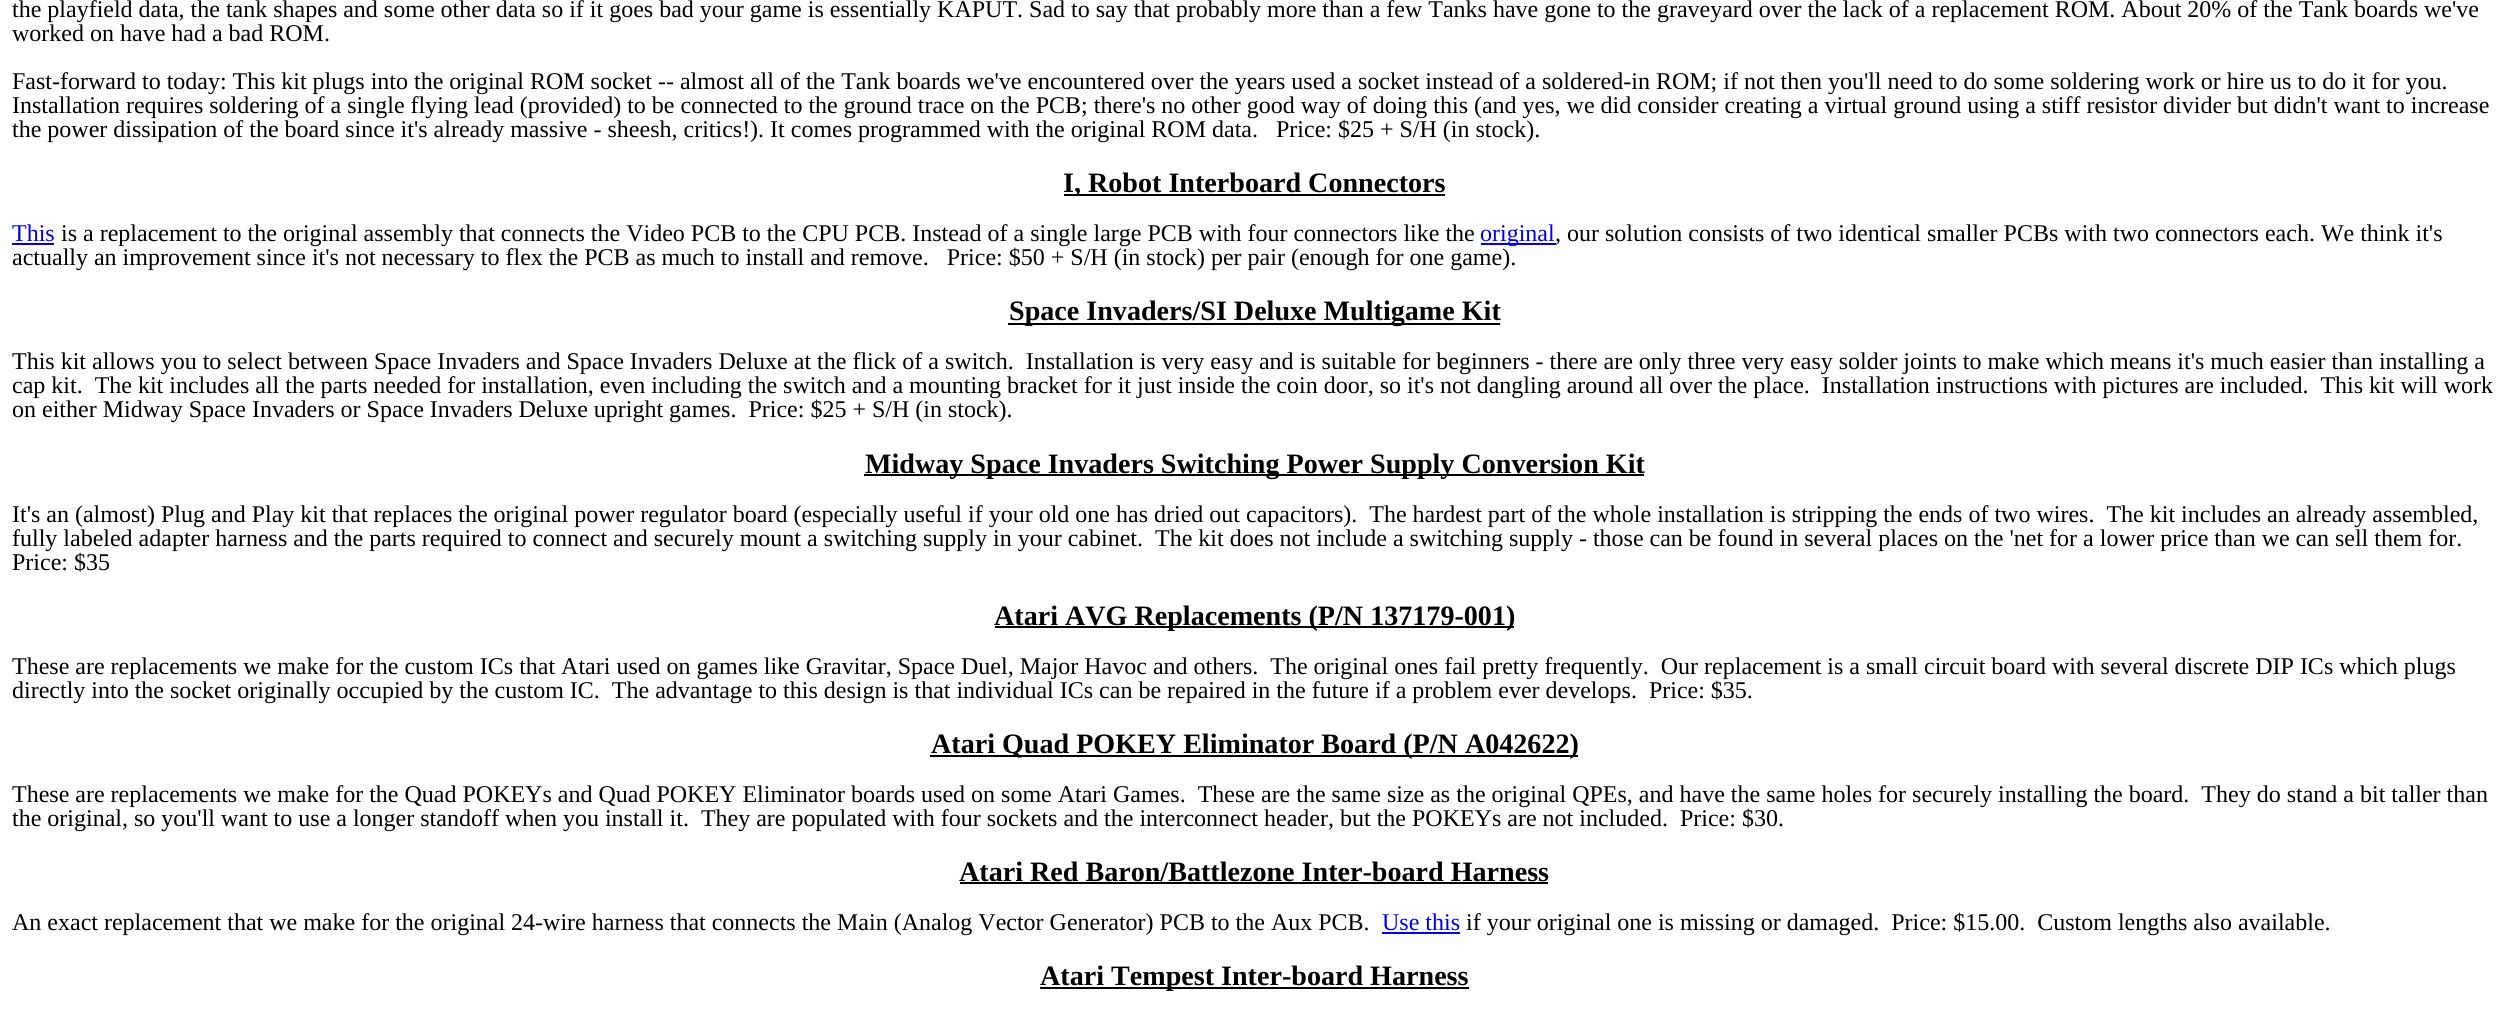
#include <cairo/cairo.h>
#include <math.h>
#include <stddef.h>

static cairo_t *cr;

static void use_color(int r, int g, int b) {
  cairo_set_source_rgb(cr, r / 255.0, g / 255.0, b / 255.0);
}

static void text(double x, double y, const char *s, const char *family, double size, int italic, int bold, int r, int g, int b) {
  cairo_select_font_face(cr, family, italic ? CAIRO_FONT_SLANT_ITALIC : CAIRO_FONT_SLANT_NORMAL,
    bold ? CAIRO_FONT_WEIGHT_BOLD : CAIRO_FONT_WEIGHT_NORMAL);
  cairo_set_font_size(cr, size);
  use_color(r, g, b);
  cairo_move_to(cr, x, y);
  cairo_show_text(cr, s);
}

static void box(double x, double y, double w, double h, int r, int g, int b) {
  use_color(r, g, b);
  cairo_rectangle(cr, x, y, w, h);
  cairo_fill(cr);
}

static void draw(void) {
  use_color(255, 255, 255);
  cairo_paint(cr);
  box(1064, 194, 381, 2, 0, 0, 0);
  box(12, 243, 42, 2, 0, 0, 238);
  box(1481, 243, 75, 2, 0, 0, 238);
  box(1008, 323, 492, 2, 0, 0, 0);
  box(864, 474, 780, 2, 0, 0, 0);
  box(995, 626, 519, 2, 0, 0, 0);
  box(930, 755, 648, 2, 0, 0, 0);
  box(960, 882, 588, 2, 0, 0, 0);
  box(1382, 932, 78, 2, 0, 0, 238);
  box(1040, 987, 429, 2, 0, 0, 0);
  text(12, 17, "the playfield data, the tank shapes and some other data so if it goes bad your game is essentially KAPUT. Sad to say that probably more than a few Tanks have gone to the graveyard over the lack of a replacement ROM. About 20% of the Tank boards we've", "Liberation Serif", 24, 0, 0, 0, 0, 0);
  text(12, 41, "worked on have had a bad ROM.", "Liberation Serif", 24, 0, 0, 0, 0, 0);
  text(12, 89, "Fast-forward to today: This kit plugs into the original ROM socket -- almost all of the Tank boards we've encountered over the years used a socket instead of a soldered-in ROM; if not then you'll need to do some soldering work or hire us to do it for you.", "Liberation Serif", 24, 0, 0, 0, 0, 0);
  text(12, 113, "Installation requires soldering of a single flying lead (provided) to be connected to the ground trace on the PCB; there's no other good way of doing this (and yes, we did consider creating a virtual ground using a stiff resistor divider but didn't want to increase", "Liberation Serif", 24, 0, 0, 0, 0, 0);
  text(12, 137, "the power dissipation of the board since it's already massive - sheesh, critics!). It comes programmed with the original ROM data.   Price: $25 + S/H (in stock).", "Liberation Serif", 24, 0, 0, 0, 0, 0);
  text(1063, 192, "I, Robot Interboard Connectors", "Liberation Serif", 28.1, 0, 1, 0, 0, 0);
  text(12, 241, "This", "Liberation Serif", 24, 0, 0, 0, 0, 238);
  text(61, 241, "is a replacement to the original assembly that connects the Video PCB to the CPU PCB. Instead of a single large PCB with four connectors like the", "Liberation Serif", 24, 0, 0, 0, 0, 0);
  text(1480, 241, "original", "Liberation Serif", 24, 0, 0, 0, 0, 238);
  text(1555, 241, ", our solution consists of two identical smaller PCBs with two connectors each. We think it's", "Liberation Serif", 24, 0, 0, 0, 0, 0);
  text(12, 265, "actually an improvement since it's not necessary to flex the PCB as much to install and remove.   Price: $50 + S/H (in stock) per pair (enough for one game).", "Liberation Serif", 24, 0, 0, 0, 0, 0);
  text(1009, 320, "Space Invaders/SI Deluxe Multigame Kit", "Liberation Serif", 28.1, 0, 1, 0, 0, 0);
  text(12, 369, "This kit allows you to select between Space Invaders and Space Invaders Deluxe at the flick of a switch.  Installation is very easy and is suitable for beginners - there are only three very easy solder joints to make which means it's much easier than installing a", "Liberation Serif", 24, 0, 0, 0, 0, 0);
  text(12, 393, "cap kit.  The kit includes all the parts needed for installation, even including the switch and a mounting bracket for it just inside the coin door, so it's not dangling around all over the place.  Installation instructions with pictures are included.  This kit will work", "Liberation Serif", 24, 0, 0, 0, 0, 0);
  text(12, 417, "on either Midway Space Invaders or Space Invaders Deluxe upright games.  Price: $25 + S/H (in stock).", "Liberation Serif", 24, 0, 0, 0, 0, 0);
  text(865, 473, "Midway Space Invaders Switching Power Supply Conversion Kit", "Liberation Serif", 28.1, 0, 1, 0, 0, 0);
  text(12, 522, "It's an (almost) Plug and Play kit that replaces the original power regulator board (especially useful if your old one has dried out capacitors).  The hardest part of the whole installation is stripping the ends of two wires.  The kit includes an already assembled,", "Liberation Serif", 24, 0, 0, 0, 0, 0);
  text(12, 546, "fully labeled adapter harness and the parts required to connect and securely mount a switching supply in your cabinet.  The kit does not include a switching supply - those can be found in several places on the 'net for a lower price than we can sell them for.", "Liberation Serif", 24, 0, 0, 0, 0, 0);
  text(12, 570, "Price: $35", "Liberation Serif", 24, 0, 0, 0, 0, 0);
  text(994, 625, "Atari AVG Replacements (P/N 137179-001)", "Liberation Serif", 28.1, 0, 1, 0, 0, 0);
  text(12, 674, "These are replacements we make for the custom ICs that Atari used on games like Gravitar, Space Duel, Major Havoc and others.  The original ones fail pretty frequently.  Our replacement is a small circuit board with several discrete DIP ICs which plugs", "Liberation Serif", 24, 0, 0, 0, 0, 0);
  text(12, 698, "directly into the socket originally occupied by the custom IC.  The advantage to this design is that individual ICs can be repaired in the future if a problem ever develops.  Price: $35.", "Liberation Serif", 24, 0, 0, 0, 0, 0);
  text(931, 753, "Atari Quad POKEY Eliminator Board (P/N A042622)", "Liberation Serif", 28.1, 0, 1, 0, 0, 0);
  text(12, 802, "These are replacements we make for the Quad POKEYs and Quad POKEY Eliminator boards used on some Atari Games.  These are the same size as the original QPEs, and have the same holes for securely installing the board.  They do stand a bit taller than", "Liberation Serif", 24, 0, 0, 0, 0, 0);
  text(12, 826, "the original, so you'll want to use a longer standoff when you install it.  They are populated with four sockets and the interconnect header, but the POKEYs are not included.  Price: $30.", "Liberation Serif", 24, 0, 0, 0, 0, 0);
  text(959, 881, "Atari Red Baron/Battlezone Inter-board Harness", "Liberation Serif", 28.1, 0, 1, 0, 0, 0);
  text(12, 930, "An exact replacement that we make for the original 24-wire harness that connects the Main (Analog Vector Generator) PCB to the Aux PCB.", "Liberation Serif", 24, 0, 0, 0, 0, 0);
  text(1382, 930, "Use this", "Liberation Serif", 24, 0, 0, 0, 0, 238);
  text(1466, 930, "if your original one is missing or damaged.  Price: $15.00.  Custom lengths also available.", "Liberation Serif", 24, 0, 0, 0, 0, 0);
  text(1040, 985, "Atari Tempest Inter-board Harness", "Liberation Serif", 28.1, 0, 1, 0, 0, 0);
}

int main(void) {
  cairo_surface_t *surface = cairo_image_surface_create(CAIRO_FORMAT_RGB24, 2507, 1027);
  cr = cairo_create(surface);
  cairo_font_options_t *options = cairo_font_options_create();
  cairo_font_options_set_hint_metrics(options, CAIRO_HINT_METRICS_OFF);
  cairo_font_options_set_hint_style(options, CAIRO_HINT_STYLE_NONE);
  cairo_set_font_options(cr, options);
  cairo_set_miter_limit(cr, 4);
  draw();
  cairo_surface_write_to_png(surface, "out.png");
  cairo_font_options_destroy(options);
  cairo_destroy(cr);
  cairo_surface_destroy(surface);
  return 0;
}
